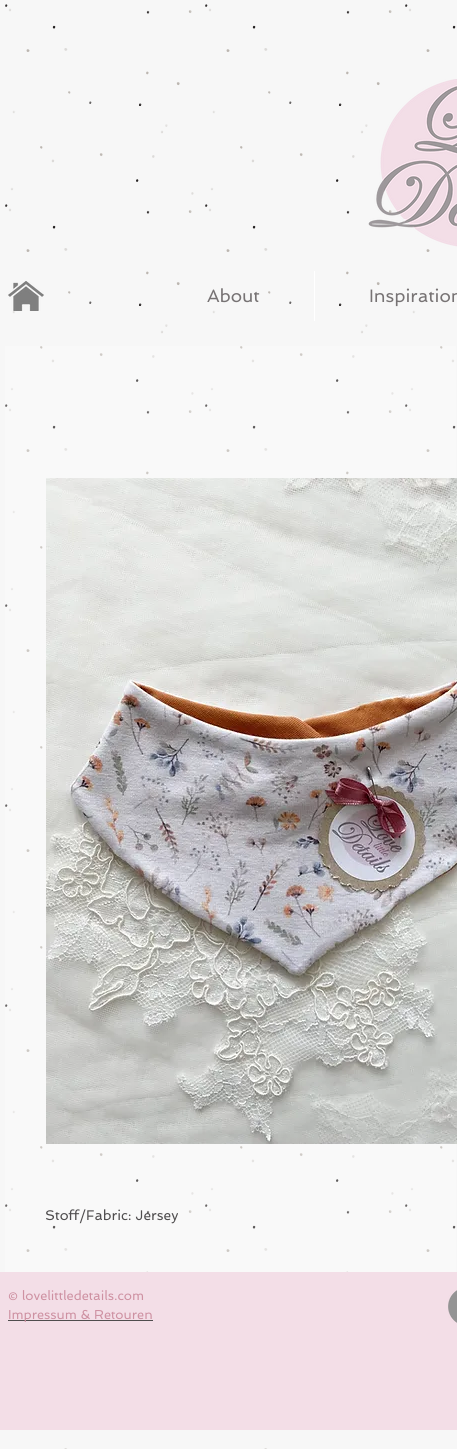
#include <cairo/cairo.h>
#include <math.h>
#include <stddef.h>

static cairo_t *cr;

static void use_color(int r, int g, int b) {
  cairo_set_source_rgb(cr, r / 255.0, g / 255.0, b / 255.0);
}

static void text(double x, double y, const char *s, const char *family, double size, int italic, int bold, int r, int g, int b) {
  cairo_select_font_face(cr, family, italic ? CAIRO_FONT_SLANT_ITALIC : CAIRO_FONT_SLANT_NORMAL,
    bold ? CAIRO_FONT_WEIGHT_BOLD : CAIRO_FONT_WEIGHT_NORMAL);
  cairo_set_font_size(cr, size);
  use_color(r, g, b);
  cairo_move_to(cr, x, y);
  cairo_show_text(cr, s);
}

static void box(double x, double y, double w, double h, int r, int g, int b) {
  use_color(r, g, b);
  cairo_rectangle(cr, x, y, w, h);
  cairo_fill(cr);
}

static void picture(const char *path, double x, double y, double w, double h) {
  cairo_surface_t *image = cairo_image_surface_create_from_png(path);
  cairo_save(cr);
  cairo_set_source_surface(cr, image, x, y);
  cairo_rectangle(cr, x, y, w, h);
  cairo_fill(cr);
  cairo_restore(cr);
  cairo_surface_destroy(image);
}

static void draw(void) {
  use_color(247, 247, 247);
  cairo_paint(cr);
  picture("img_01.png", 5, 4, 451, 1445);
  picture("img_02.png", 368, 79, 89, 168);
  picture("img_03.png", 8, 281, 36, 30);
  box(314, 271, 1, 50, 255, 255, 255);
  cairo_set_source_rgba(cr, 1, 1, 1, 0.26);
  cairo_rectangle(cr, 5, 346, 451, 926);
  cairo_fill(cr);
  picture("img_04.png", 46, 478, 411, 666);
  box(0, 1272, 457, 158, 243, 222, 231);
  box(8, 1320, 145, 1, 79, 77, 78);
  picture("img_05.png", 448, 1290, 9, 33);
  text(207, 302, "About", "Spinnaker", 18, 0, 0, 119, 115, 116);
  text(369, 302, "Inspiration", "Spinnaker", 18, 0, 0, 119, 115, 116);
  text(45, 1220, "Stoff/Fabric: Jersey", "Spinnaker", 14, 0, 0, 79, 77, 78);
  text(8, 1300, "© lovelittledetails.com", "Spinnaker", 13, 0, 0, 206, 145, 162);
  text(8, 1319, "Impressum & Retouren", "Spinnaker", 13, 0, 0, 206, 145, 162);
}

int main(void) {
  cairo_surface_t *surface = cairo_image_surface_create(CAIRO_FORMAT_RGB24, 457, 1449);
  cr = cairo_create(surface);
  cairo_font_options_t *options = cairo_font_options_create();
  cairo_font_options_set_hint_metrics(options, CAIRO_HINT_METRICS_OFF);
  cairo_font_options_set_hint_style(options, CAIRO_HINT_STYLE_NONE);
  cairo_set_font_options(cr, options);
  cairo_set_miter_limit(cr, 4);
  draw();
  cairo_surface_write_to_png(surface, "out.png");
  cairo_font_options_destroy(options);
  cairo_destroy(cr);
  cairo_surface_destroy(surface);
  return 0;
}
